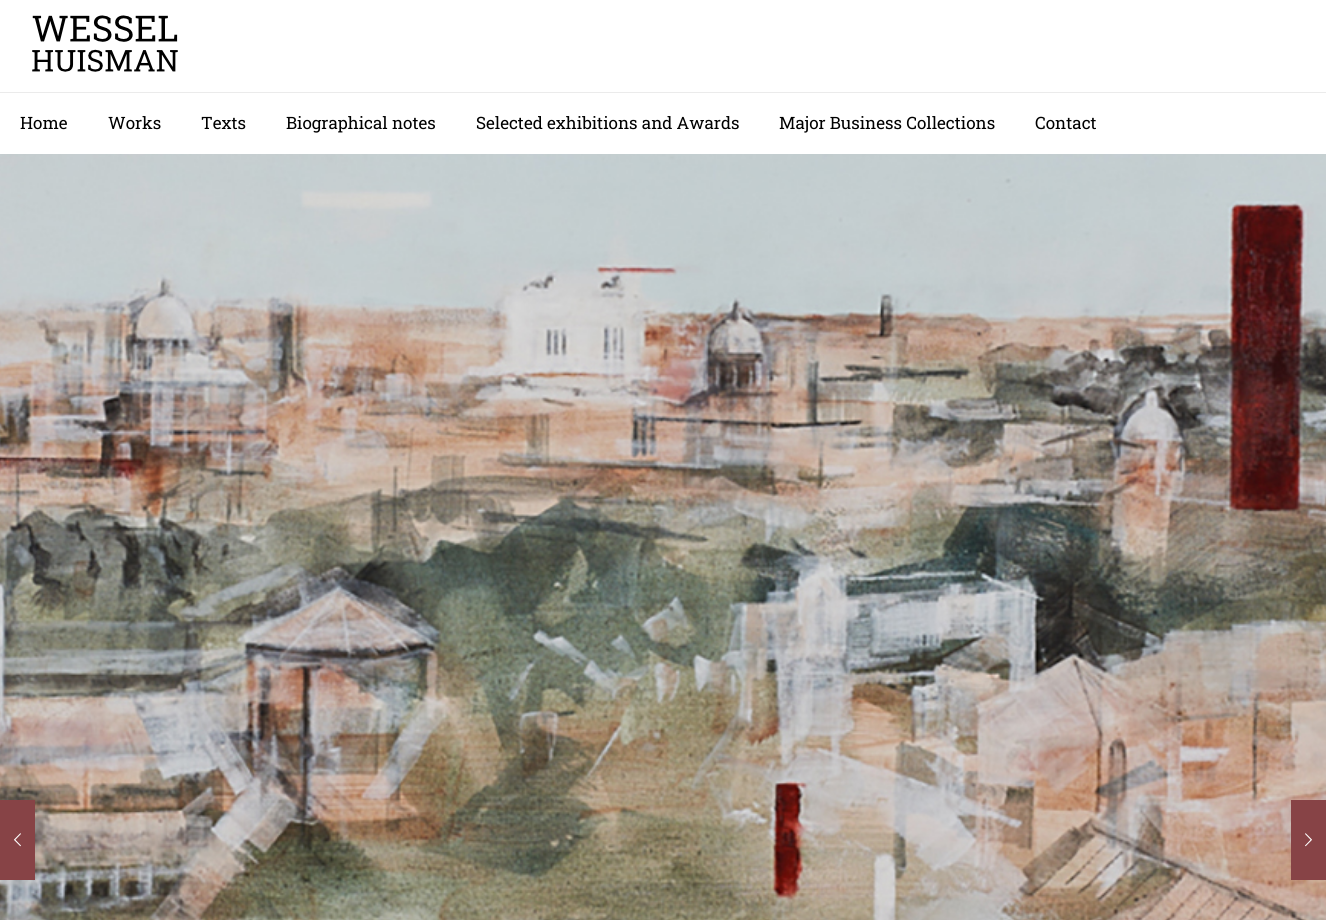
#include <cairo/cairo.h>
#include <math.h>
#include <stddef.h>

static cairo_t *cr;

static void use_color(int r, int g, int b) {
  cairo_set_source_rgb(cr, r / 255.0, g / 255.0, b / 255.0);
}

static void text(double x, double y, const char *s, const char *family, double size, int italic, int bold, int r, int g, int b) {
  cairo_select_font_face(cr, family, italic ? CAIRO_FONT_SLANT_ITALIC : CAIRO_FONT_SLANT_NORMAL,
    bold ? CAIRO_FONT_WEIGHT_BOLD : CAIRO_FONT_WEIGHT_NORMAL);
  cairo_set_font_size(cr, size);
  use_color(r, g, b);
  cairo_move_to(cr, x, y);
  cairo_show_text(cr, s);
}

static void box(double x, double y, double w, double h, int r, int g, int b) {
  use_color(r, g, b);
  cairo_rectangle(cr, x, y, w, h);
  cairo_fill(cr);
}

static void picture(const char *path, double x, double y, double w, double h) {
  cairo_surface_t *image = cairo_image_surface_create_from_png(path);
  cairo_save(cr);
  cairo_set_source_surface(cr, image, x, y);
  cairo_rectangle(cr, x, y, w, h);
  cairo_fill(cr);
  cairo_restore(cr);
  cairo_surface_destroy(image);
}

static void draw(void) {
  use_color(255, 255, 255);
  cairo_paint(cr);
  box(0, 92, 1326, 1, 235, 235, 235);
  picture("img_01.png", 32, 15, 146, 57);
  picture("img_02.png", 0, 154, 1326, 766);
  box(0, 800, 35, 80, 135, 67, 70);
  picture("img_03.png", 14, 833, 7, 14);
  box(1291, 800, 35, 80, 135, 67, 70);
  picture("img_04.png", 1305, 833, 7, 14);
  text(20, 129, "Home", "Roboto Slab", 17, 0, 0, 0, 0, 0);
  text(108, 129, "Works", "Roboto Slab", 17, 0, 0, 0, 0, 0);
  text(201, 129, "Texts", "Roboto Slab", 17, 0, 0, 0, 0, 0);
  text(286, 129, "Biographical notes", "Roboto Slab", 17, 0, 0, 0, 0, 0);
  text(476, 129, "Selected exhibitions and Awards", "Roboto Slab", 17, 0, 0, 0, 0, 0);
  text(779, 129, "Major Business Collections", "Roboto Slab", 17, 0, 0, 0, 0, 0);
  text(1035, 129, "Contact", "Roboto Slab", 17, 0, 0, 0, 0, 0);
}

int main(void) {
  cairo_surface_t *surface = cairo_image_surface_create(CAIRO_FORMAT_RGB24, 1326, 920);
  cr = cairo_create(surface);
  cairo_font_options_t *options = cairo_font_options_create();
  cairo_font_options_set_hint_metrics(options, CAIRO_HINT_METRICS_OFF);
  cairo_font_options_set_hint_style(options, CAIRO_HINT_STYLE_NONE);
  cairo_set_font_options(cr, options);
  cairo_set_miter_limit(cr, 4);
  draw();
  cairo_surface_write_to_png(surface, "out.png");
  cairo_font_options_destroy(options);
  cairo_destroy(cr);
  cairo_surface_destroy(surface);
  return 0;
}
